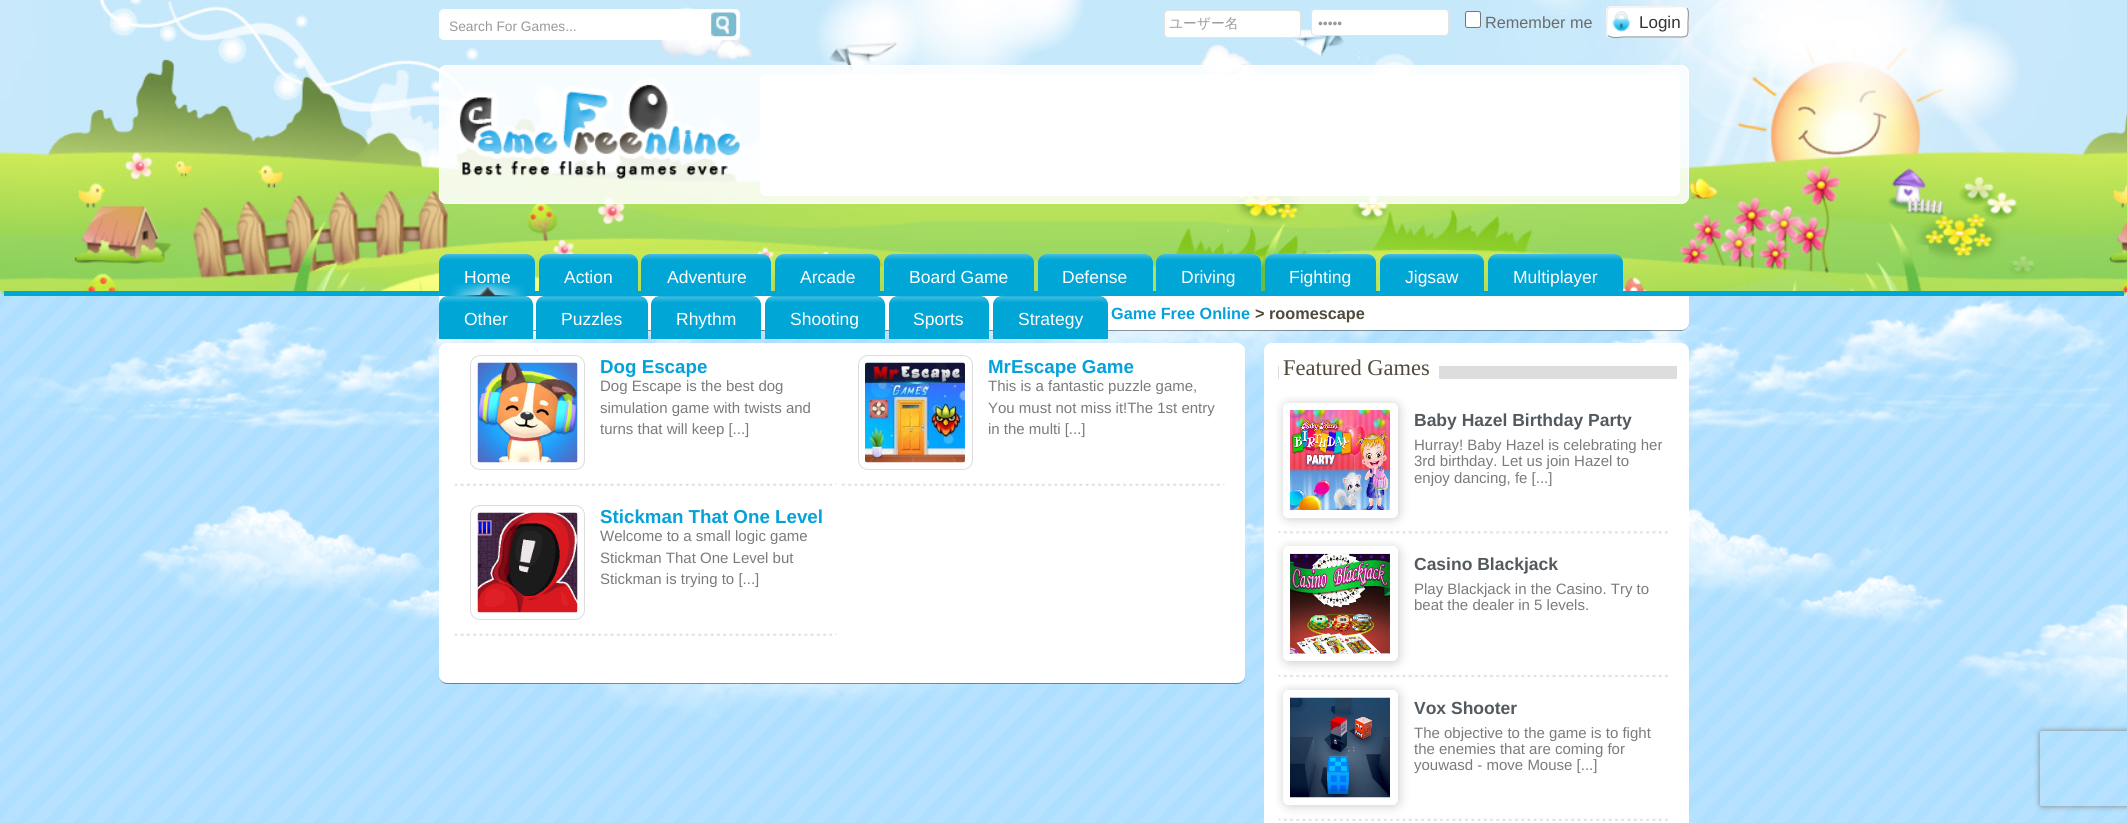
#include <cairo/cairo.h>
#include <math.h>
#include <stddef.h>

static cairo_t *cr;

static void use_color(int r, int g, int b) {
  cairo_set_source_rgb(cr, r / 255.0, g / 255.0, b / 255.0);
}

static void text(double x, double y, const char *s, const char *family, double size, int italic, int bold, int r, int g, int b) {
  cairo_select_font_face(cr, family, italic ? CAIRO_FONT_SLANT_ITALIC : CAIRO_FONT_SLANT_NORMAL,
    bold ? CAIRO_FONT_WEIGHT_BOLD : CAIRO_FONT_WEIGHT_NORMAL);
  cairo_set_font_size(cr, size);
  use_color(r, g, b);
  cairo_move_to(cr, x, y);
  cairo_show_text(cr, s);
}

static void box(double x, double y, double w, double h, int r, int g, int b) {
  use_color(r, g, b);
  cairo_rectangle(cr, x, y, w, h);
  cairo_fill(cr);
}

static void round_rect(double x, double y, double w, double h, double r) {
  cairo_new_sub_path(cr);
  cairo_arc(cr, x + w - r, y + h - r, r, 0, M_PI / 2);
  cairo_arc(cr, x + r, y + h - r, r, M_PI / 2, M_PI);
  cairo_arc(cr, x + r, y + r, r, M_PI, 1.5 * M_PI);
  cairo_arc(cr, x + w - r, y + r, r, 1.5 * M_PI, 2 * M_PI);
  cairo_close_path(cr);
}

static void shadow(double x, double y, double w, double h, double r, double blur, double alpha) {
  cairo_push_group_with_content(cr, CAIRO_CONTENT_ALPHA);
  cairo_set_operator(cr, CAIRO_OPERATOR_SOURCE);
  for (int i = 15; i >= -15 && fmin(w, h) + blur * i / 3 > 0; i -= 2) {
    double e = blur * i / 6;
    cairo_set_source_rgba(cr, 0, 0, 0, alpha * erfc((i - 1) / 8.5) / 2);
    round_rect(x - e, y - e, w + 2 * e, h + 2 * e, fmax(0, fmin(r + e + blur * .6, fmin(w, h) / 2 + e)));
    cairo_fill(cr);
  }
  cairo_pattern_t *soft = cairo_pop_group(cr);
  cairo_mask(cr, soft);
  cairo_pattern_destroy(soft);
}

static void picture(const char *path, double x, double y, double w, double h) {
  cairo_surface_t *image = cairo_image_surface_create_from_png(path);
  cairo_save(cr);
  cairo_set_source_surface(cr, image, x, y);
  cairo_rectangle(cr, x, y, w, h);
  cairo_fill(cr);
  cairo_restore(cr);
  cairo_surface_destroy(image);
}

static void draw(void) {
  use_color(174, 223, 255);
  cairo_paint(cr);
  picture("img_01.png", 0, 289, 2127, 534);
  picture("img_02.png", 0, 0, 2127, 297);
  box(4, 291, 2120, 5, 0, 166, 214);
  use_color(255, 255, 255);
  round_rect(439.5, 9.5, 300, 30, 4.5);
  cairo_fill_preserve(cr);
  cairo_set_line_width(cr, 1);
  cairo_stroke(cr);
  use_color(239, 239, 239);
  cairo_new_path(cr);
  cairo_move_to(cr, 711, 13);
  cairo_line_to(cr, 732, 13);
  cairo_curve_to(cr, 734, 13, 736, 15, 736, 17);
  cairo_line_to(cr, 736, 32);
  cairo_curve_to(cr, 736, 34, 734, 36, 732, 36);
  cairo_line_to(cr, 711, 36);
  cairo_close_path(cr);
  cairo_fill(cr);
  picture("img_03.png", 711, 12, 26, 25);
  use_color(255, 255, 255);
  round_rect(1164.5, 10.5, 136, 27, 3.5);
  cairo_fill_preserve(cr);
  use_color(227, 227, 227);
  cairo_stroke(cr);
  use_color(255, 255, 255);
  round_rect(1311.5, 9.5, 137, 26, 3.5);
  cairo_fill_preserve(cr);
  use_color(227, 227, 227);
  cairo_stroke(cr);
  use_color(255, 255, 255);
  round_rect(1465.5, 11.5, 15, 16, 2);
  cairo_fill_preserve(cr);
  use_color(118, 118, 118);
  cairo_stroke(cr);
  use_color(255, 255, 255);
  round_rect(1606, 6, 83, 32, 5);
  cairo_fill(cr);
  picture("img_04.png", 1612, 11, 18, 21);
  cairo_new_path(cr);
  cairo_move_to(cr, 1687, 8);
  cairo_curve_to(cr, 1689.5, 11, 1688, 18.5, 1688, 22);
  cairo_curve_to(cr, 1688, 39, 1689.5, 37, 1671.5, 37);
  cairo_line_to(cr, 1623.5, 37);
  cairo_curve_to(cr, 1623, 37, 1611.5, 39, 1608, 35.5);
  use_color(153, 153, 153);
  cairo_set_line_width(cr, 1.2);
  cairo_stroke(cr);
  cairo_new_path(cr);
  cairo_move_to(cr, 1608, 35.5);
  cairo_curve_to(cr, 1605.5, 33, 1607, 25, 1607, 22);
  cairo_curve_to(cr, 1607, 5, 1605.5, 7, 1623.5, 7);
  cairo_line_to(cr, 1671.5, 7);
  cairo_curve_to(cr, 1672, 7, 1683.5, 5, 1687, 8);
  use_color(237, 237, 237);
  cairo_stroke(cr);
  cairo_set_source_rgba(cr, 1, 1, 1, 0.7);
  round_rect(439, 65, 1250, 139, 8);
  cairo_fill(cr);
  picture("img_05.png", 438, 65, 1251, 139);
  round_rect(439.5, 65.5, 1249, 138, 7.5);
  use_color(255, 255, 255);
  cairo_set_line_width(cr, 1);
  cairo_stroke(cr);
  picture("img_06.png", 459, 79, 281, 100);
  round_rect(760.5, 74.5, 919, 121, 5.5);
  cairo_fill_preserve(cr);
  cairo_stroke(cr);
  use_color(0, 166, 214);
  cairo_new_path(cr);
  cairo_move_to(cr, 448, 254);
  cairo_line_to(cr, 526, 254);
  cairo_curve_to(cr, 531, 254, 535, 258, 535, 263);
  cairo_line_to(cr, 535, 296);
  cairo_line_to(cr, 439, 296);
  cairo_line_to(cr, 439, 263);
  cairo_curve_to(cr, 439, 258, 443, 254, 448, 254);
  cairo_close_path(cr);
  cairo_fill(cr);
  picture("img_07.png", 440, 254, 94, 6);
  cairo_new_path(cr);
  cairo_move_to(cr, 548, 254);
  cairo_line_to(cr, 629, 254);
  cairo_curve_to(cr, 634, 254, 638, 258, 638, 263);
  cairo_line_to(cr, 638, 296);
  cairo_line_to(cr, 539, 296);
  cairo_line_to(cr, 539, 263);
  cairo_curve_to(cr, 539, 258, 543, 254, 548, 254);
  cairo_close_path(cr);
  cairo_fill(cr);
  picture("img_08.png", 540, 254, 97, 6);
  cairo_new_path(cr);
  cairo_move_to(cr, 650, 254);
  cairo_line_to(cr, 762, 254);
  cairo_curve_to(cr, 767, 254, 771, 258, 771, 263);
  cairo_line_to(cr, 771, 296);
  cairo_line_to(cr, 641, 296);
  cairo_line_to(cr, 641, 263);
  cairo_curve_to(cr, 641, 258, 645, 254, 650, 254);
  cairo_close_path(cr);
  cairo_fill(cr);
  picture("img_09.png", 642, 254, 128, 6);
  cairo_new_path(cr);
  cairo_move_to(cr, 784, 254);
  cairo_line_to(cr, 871, 254);
  cairo_curve_to(cr, 876, 254, 880, 258, 880, 263);
  cairo_line_to(cr, 880, 296);
  cairo_line_to(cr, 775, 296);
  cairo_line_to(cr, 775, 263);
  cairo_curve_to(cr, 775, 258, 779, 254, 784, 254);
  cairo_close_path(cr);
  cairo_fill(cr);
  picture("img_10.png", 776, 254, 103, 6);
  cairo_new_path(cr);
  cairo_move_to(cr, 893, 254);
  cairo_line_to(cr, 1025, 254);
  cairo_curve_to(cr, 1030, 254, 1034, 258, 1034, 263);
  cairo_line_to(cr, 1034, 296);
  cairo_line_to(cr, 884, 296);
  cairo_line_to(cr, 884, 263);
  cairo_curve_to(cr, 884, 258, 888, 254, 893, 254);
  cairo_close_path(cr);
  cairo_fill(cr);
  picture("img_11.png", 885, 254, 148, 6);
  cairo_new_path(cr);
  cairo_move_to(cr, 1047, 254);
  cairo_line_to(cr, 1144, 254);
  cairo_curve_to(cr, 1149, 254, 1153, 258, 1153, 263);
  cairo_line_to(cr, 1153, 296);
  cairo_line_to(cr, 1038, 296);
  cairo_line_to(cr, 1038, 263);
  cairo_curve_to(cr, 1038, 258, 1042, 254, 1047, 254);
  cairo_close_path(cr);
  cairo_fill(cr);
  picture("img_12.png", 1038, 254, 114, 6);
  cairo_new_path(cr);
  cairo_move_to(cr, 1165, 254);
  cairo_line_to(cr, 1252, 254);
  cairo_curve_to(cr, 1257, 254, 1261, 258, 1261, 263);
  cairo_line_to(cr, 1261, 296);
  cairo_line_to(cr, 1156, 296);
  cairo_line_to(cr, 1156, 263);
  cairo_curve_to(cr, 1156, 258, 1160, 254, 1165, 254);
  cairo_close_path(cr);
  cairo_fill(cr);
  picture("img_13.png", 1157, 254, 103, 6);
  cairo_new_path(cr);
  cairo_move_to(cr, 1274, 254);
  cairo_line_to(cr, 1367, 254);
  cairo_curve_to(cr, 1372, 254, 1376, 258, 1376, 263);
  cairo_line_to(cr, 1376, 296);
  cairo_line_to(cr, 1265, 296);
  cairo_line_to(cr, 1265, 263);
  cairo_curve_to(cr, 1265, 258, 1269, 254, 1274, 254);
  cairo_close_path(cr);
  cairo_fill(cr);
  picture("img_14.png", 1266, 254, 109, 6);
  cairo_new_path(cr);
  cairo_move_to(cr, 1389, 254);
  cairo_line_to(cr, 1475, 254);
  cairo_curve_to(cr, 1480, 254, 1484, 258, 1484, 263);
  cairo_line_to(cr, 1484, 296);
  cairo_line_to(cr, 1380, 296);
  cairo_line_to(cr, 1380, 263);
  cairo_curve_to(cr, 1380, 258, 1384, 254, 1389, 254);
  cairo_close_path(cr);
  cairo_fill(cr);
  picture("img_15.png", 1381, 254, 102, 6);
  cairo_new_path(cr);
  cairo_move_to(cr, 1497, 254);
  cairo_line_to(cr, 1614, 254);
  cairo_curve_to(cr, 1619, 254, 1623, 258, 1623, 263);
  cairo_line_to(cr, 1623, 296);
  cairo_line_to(cr, 1488, 296);
  cairo_line_to(cr, 1488, 263);
  cairo_curve_to(cr, 1488, 258, 1492, 254, 1497, 254);
  cairo_close_path(cr);
  cairo_fill(cr);
  picture("img_16.png", 1488, 254, 134, 6);
  cairo_set_source_rgba(cr, 0, 0, 0, 0.4);
  cairo_new_path(cr);
  cairo_move_to(cr, 439, 326);
  cairo_curve_to(cr, 441, 329, 444, 331, 447, 331);
  cairo_line_to(cr, 1681, 331);
  cairo_curve_to(cr, 1685, 331, 1689, 327, 1689, 323);
  cairo_line_to(cr, 1689, 298);
  cairo_line_to(cr, 1689, 322);
  cairo_curve_to(cr, 1689, 327, 1685, 330, 1681, 330);
  cairo_line_to(cr, 446, 330);
  cairo_curve_to(cr, 443, 330, 441, 328, 439, 326);
  cairo_close_path(cr);
  cairo_fill(cr);
  use_color(255, 255, 255);
  cairo_new_path(cr);
  cairo_move_to(cr, 439, 296);
  cairo_line_to(cr, 1689, 296);
  cairo_line_to(cr, 1689, 322);
  cairo_curve_to(cr, 1689, 326.5, 1685.5, 330, 1681, 330);
  cairo_line_to(cr, 447, 330);
  cairo_curve_to(cr, 442.5, 330, 439, 326.5, 439, 322);
  cairo_close_path(cr);
  cairo_fill(cr);
  use_color(0, 166, 214);
  cairo_new_path(cr);
  cairo_move_to(cr, 448, 296);
  cairo_line_to(cr, 524, 296);
  cairo_curve_to(cr, 529, 296, 533, 300, 533, 305);
  cairo_line_to(cr, 533, 339);
  cairo_line_to(cr, 439, 339);
  cairo_line_to(cr, 439, 305);
  cairo_curve_to(cr, 439, 300, 443, 296, 448, 296);
  cairo_close_path(cr);
  cairo_fill(cr);
  picture("img_18.png", 440, 296, 92, 6);
  picture("img_17.png", 449, 284, 77, 13);
  cairo_new_path(cr);
  cairo_move_to(cr, 545, 296);
  cairo_line_to(cr, 639, 296);
  cairo_curve_to(cr, 644, 296, 648, 300, 648, 305);
  cairo_line_to(cr, 648, 339);
  cairo_line_to(cr, 536, 339);
  cairo_line_to(cr, 536, 305);
  cairo_curve_to(cr, 536, 300, 540, 296, 545, 296);
  cairo_close_path(cr);
  cairo_fill(cr);
  picture("img_19.png", 537, 296, 110, 6);
  cairo_new_path(cr);
  cairo_move_to(cr, 660, 296);
  cairo_line_to(cr, 752, 296);
  cairo_curve_to(cr, 757, 296, 761, 300, 761, 305);
  cairo_line_to(cr, 761, 339);
  cairo_line_to(cr, 651, 339);
  cairo_line_to(cr, 651, 305);
  cairo_curve_to(cr, 651, 300, 655, 296, 660, 296);
  cairo_close_path(cr);
  cairo_fill(cr);
  picture("img_20.png", 652, 296, 108, 6);
  cairo_new_path(cr);
  cairo_move_to(cr, 774, 296);
  cairo_line_to(cr, 876, 296);
  cairo_curve_to(cr, 881, 296, 885, 300, 885, 305);
  cairo_line_to(cr, 885, 339);
  cairo_line_to(cr, 765, 339);
  cairo_line_to(cr, 765, 305);
  cairo_curve_to(cr, 765, 300, 769, 296, 774, 296);
  cairo_close_path(cr);
  cairo_fill(cr);
  picture("img_21.png", 766, 296, 118, 6);
  cairo_new_path(cr);
  cairo_move_to(cr, 898, 296);
  cairo_line_to(cr, 980, 296);
  cairo_curve_to(cr, 985, 296, 989, 300, 989, 305);
  cairo_line_to(cr, 989, 339);
  cairo_line_to(cr, 889, 339);
  cairo_line_to(cr, 889, 305);
  cairo_curve_to(cr, 889, 300, 893, 296, 898, 296);
  cairo_close_path(cr);
  cairo_fill(cr);
  picture("img_22.png", 890, 296, 98, 6);
  cairo_new_path(cr);
  cairo_move_to(cr, 1002, 296);
  cairo_line_to(cr, 1099, 296);
  cairo_curve_to(cr, 1104, 296, 1108, 300, 1108, 305);
  cairo_line_to(cr, 1108, 339);
  cairo_line_to(cr, 993, 339);
  cairo_line_to(cr, 993, 305);
  cairo_curve_to(cr, 993, 300, 997, 296, 1002, 296);
  cairo_close_path(cr);
  cairo_fill(cr);
  picture("img_23.png", 994, 296, 113, 6);
  cairo_set_source_rgba(cr, 0, 0, 0, 0.4);
  cairo_new_path(cr);
  cairo_move_to(cr, 439, 677);
  cairo_curve_to(cr, 440, 681, 443, 684, 447, 684);
  cairo_line_to(cr, 1237, 684);
  cairo_curve_to(cr, 1241, 684, 1245, 680, 1245, 676);
  cairo_line_to(cr, 1245, 675);
  cairo_curve_to(cr, 1245, 679, 1242, 682, 1238, 682);
  cairo_line_to(cr, 446, 682);
  cairo_curve_to(cr, 443, 682, 440, 680, 439, 677);
  cairo_close_path(cr);
  cairo_fill(cr);
  use_color(255, 255, 255);
  round_rect(439, 343, 806, 340, 8);
  cairo_fill(cr);
  picture("img_24.png", 454, 483, 384, 3);
  round_rect(470.5, 355.5, 114, 114, 9.5);
  use_color(221, 221, 221);
  cairo_stroke(cr);
  picture("img_25.png", 477, 362, 101, 101);
  picture("img_26.png", 841, 483, 384, 3);
  round_rect(858.5, 355.5, 114, 114, 9.5);
  cairo_stroke(cr);
  picture("img_27.png", 865, 362, 100, 101);
  picture("img_28.png", 454, 633, 384, 3);
  round_rect(470.5, 505.5, 114, 114, 9.5);
  cairo_stroke(cr);
  picture("img_29.png", 477, 512, 101, 101);
  use_color(255, 255, 255);
  round_rect(1264, 343, 425, 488, 8);
  cairo_fill(cr);
  box(1278, 366, 399, 13, 221, 221, 221);
  box(1279, 366, 160, 13, 255, 255, 255);
  picture("img_30.png", 1278, 531, 390, 3);
  cairo_save(cr);
  round_rect(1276, 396, 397, 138, 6);
  cairo_clip(cr);
  cairo_set_fill_rule(cr, CAIRO_FILL_RULE_EVEN_ODD);
  cairo_new_path(cr);
  cairo_move_to(cr, 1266, 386);
  cairo_line_to(cr, 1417, 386);
  cairo_line_to(cr, 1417, 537);
  cairo_line_to(cr, 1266, 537);
  cairo_close_path(cr);
  cairo_move_to(cr, 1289, 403);
  cairo_line_to(cr, 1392, 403);
  cairo_curve_to(cr, 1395.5, 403, 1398, 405.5, 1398, 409);
  cairo_line_to(cr, 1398, 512);
  cairo_curve_to(cr, 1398, 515.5, 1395.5, 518, 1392, 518);
  cairo_line_to(cr, 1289, 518);
  cairo_curve_to(cr, 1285.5, 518, 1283, 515.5, 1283, 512);
  cairo_line_to(cr, 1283, 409);
  cairo_curve_to(cr, 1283, 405.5, 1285.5, 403, 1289, 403);
  cairo_close_path(cr);
  cairo_clip(cr);
  use_color(204, 204, 204);
  shadow(1284, 404, 115, 115, 6, 5.5, 1);
  cairo_restore(cr);
  picture("img_31.png", 1290, 410, 100, 100);
  picture("img_32.png", 1278, 675, 391, 3);
  cairo_save(cr);
  round_rect(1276, 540, 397, 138, 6);
  cairo_clip(cr);
  cairo_set_fill_rule(cr, CAIRO_FILL_RULE_EVEN_ODD);
  cairo_new_path(cr);
  cairo_move_to(cr, 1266, 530);
  cairo_line_to(cr, 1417, 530);
  cairo_line_to(cr, 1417, 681);
  cairo_line_to(cr, 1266, 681);
  cairo_close_path(cr);
  cairo_move_to(cr, 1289, 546);
  cairo_line_to(cr, 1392, 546);
  cairo_curve_to(cr, 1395.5, 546, 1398, 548.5, 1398, 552);
  cairo_line_to(cr, 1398, 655);
  cairo_curve_to(cr, 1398, 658.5, 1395.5, 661, 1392, 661);
  cairo_line_to(cr, 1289, 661);
  cairo_curve_to(cr, 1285.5, 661, 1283, 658.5, 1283, 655);
  cairo_line_to(cr, 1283, 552);
  cairo_curve_to(cr, 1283, 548.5, 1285.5, 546, 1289, 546);
  cairo_close_path(cr);
  cairo_clip(cr);
  use_color(204, 204, 204);
  shadow(1284, 548, 115, 115, 6, 5.5, 1);
  cairo_restore(cr);
  picture("img_33.png", 1290, 553, 100, 101);
  picture("img_34.png", 1278, 818, 391, 3);
  cairo_save(cr);
  round_rect(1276, 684, 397, 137, 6);
  cairo_clip(cr);
  cairo_set_fill_rule(cr, CAIRO_FILL_RULE_EVEN_ODD);
  cairo_new_path(cr);
  cairo_move_to(cr, 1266, 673);
  cairo_line_to(cr, 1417, 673);
  cairo_line_to(cr, 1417, 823);
  cairo_line_to(cr, 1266, 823);
  cairo_close_path(cr);
  cairo_move_to(cr, 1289, 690);
  cairo_line_to(cr, 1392, 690);
  cairo_curve_to(cr, 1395.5, 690, 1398, 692.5, 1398, 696);
  cairo_line_to(cr, 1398, 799);
  cairo_curve_to(cr, 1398, 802.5, 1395.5, 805, 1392, 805);
  cairo_line_to(cr, 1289, 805);
  cairo_curve_to(cr, 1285.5, 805, 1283, 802.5, 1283, 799);
  cairo_line_to(cr, 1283, 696);
  cairo_curve_to(cr, 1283, 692.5, 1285.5, 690, 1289, 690);
  cairo_close_path(cr);
  cairo_clip(cr);
  use_color(204, 204, 204);
  shadow(1284, 691, 115, 115, 6, 5.5, 1);
  cairo_restore(cr);
  picture("img_35.png", 1290, 697, 100, 101);
  cairo_save(cr);
  cairo_set_fill_rule(cr, CAIRO_FILL_RULE_EVEN_ODD);
  cairo_new_path(cr);
  cairo_move_to(cr, 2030, 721);
  cairo_line_to(cr, 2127, 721);
  cairo_line_to(cr, 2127, 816);
  cairo_line_to(cr, 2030, 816);
  cairo_close_path(cr);
  cairo_move_to(cr, 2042.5, 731);
  cairo_line_to(cr, 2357.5, 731);
  cairo_curve_to(cr, 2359, 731, 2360, 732, 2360, 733.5);
  cairo_line_to(cr, 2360, 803.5);
  cairo_curve_to(cr, 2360, 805, 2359, 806, 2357.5, 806);
  cairo_line_to(cr, 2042.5, 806);
  cairo_curve_to(cr, 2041, 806, 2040, 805, 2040, 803.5);
  cairo_line_to(cr, 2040, 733.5);
  cairo_curve_to(cr, 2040, 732, 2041, 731, 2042.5, 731);
  cairo_close_path(cr);
  cairo_clip(cr);
  use_color(128, 128, 128);
  shadow(2040, 731, 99, 75, 2.5, 3, 1);
  cairo_restore(cr);
  text(449, 31, "Search For Games...", "Liberation Sans", 13.75, 0, 0, 153, 153, 153);
  text(1169, 28, "ユーザー名", "WenQuanYi Zen Hei Medium", 13.75, 0, 0, 153, 153, 153);
  text(1318, 28, "•••••", "Liberation Sans", 13.75, 0, 0, 153, 153, 153);
  text(1485, 28, "Remember me", "Liberation Sans", 16.25, 0, 0, 108, 108, 108);
  text(1639, 28, "Login", "Liberation Sans", 17, 0, 0, 51, 51, 51);
  text(464, 283, "Home", "Liberation Sans", 17.5, 0, 0, 255, 255, 255);
  text(564, 283, "Action", "Liberation Sans", 17.5, 0, 0, 255, 255, 255);
  text(667, 283, "Adventure", "Liberation Sans", 17.5, 0, 0, 255, 255, 255);
  text(800, 283, "Arcade", "Liberation Sans", 17.5, 0, 0, 255, 255, 255);
  text(909, 283, "Board Game", "Liberation Sans", 17.5, 0, 0, 255, 255, 255);
  text(1062, 283, "Defense", "Liberation Sans", 17.5, 0, 0, 255, 255, 255);
  text(1181, 283, "Driving", "Liberation Sans", 17.5, 0, 0, 255, 255, 255);
  text(1289, 283, "Fighting", "Liberation Sans", 17.5, 0, 0, 255, 255, 255);
  text(1405, 283, "Jigsaw", "Liberation Sans", 17.5, 0, 0, 255, 255, 255);
  text(1513, 283, "Multiplayer", "Liberation Sans", 17.5, 0, 0, 255, 255, 255);
  text(464, 325, "Other", "Liberation Sans", 17.5, 0, 0, 255, 255, 255);
  text(561, 325, "Puzzles", "Liberation Sans", 17.5, 0, 0, 255, 255, 255);
  text(676, 325, "Rhythm", "Liberation Sans", 17.5, 0, 0, 255, 255, 255);
  text(790, 325, "Shooting", "Liberation Sans", 17.5, 0, 0, 255, 255, 255);
  text(913, 325, "Sports", "Liberation Sans", 17.5, 0, 0, 255, 255, 255);
  text(1018, 325, "Strategy", "Liberation Sans", 17.5, 0, 0, 255, 255, 255);
  text(1111, 319, "Game Free Online", "Liberation Sans", 16.25, 0, 1, 4, 161, 218);
  text(1255, 319, "> roomescape", "Liberation Sans", 16.25, 0, 1, 81, 73, 60);
  text(600, 373, "Dog Escape", "Liberation Sans", 18.75, 0, 1, 4, 161, 218);
  text(600, 391, "Dog Escape is the best dog", "Liberation Sans", 15, 0, 0, 123, 123, 123);
  text(600, 413, "simulation game with twists and", "Liberation Sans", 15, 0, 0, 123, 123, 123);
  text(600, 434, "turns that will keep [...]", "Liberation Sans", 15, 0, 0, 123, 123, 123);
  text(988, 373, "MrEscape Game", "Liberation Sans", 18.75, 0, 1, 4, 161, 218);
  text(988, 391, "This is a fantastic puzzle game,", "Liberation Sans", 15, 0, 0, 123, 123, 123);
  text(988, 413, "You must not miss it!The 1st entry", "Liberation Sans", 15, 0, 0, 123, 123, 123);
  text(988, 434, "in the multi [...]", "Liberation Sans", 15, 0, 0, 123, 123, 123);
  text(600, 523, "Stickman That One Level", "Liberation Sans", 18.75, 0, 1, 4, 161, 218);
  text(600, 541, "Welcome to a small logic game", "Liberation Sans", 15, 0, 0, 123, 123, 123);
  text(600, 563, "Stickman That One Level but", "Liberation Sans", 15, 0, 0, 123, 123, 123);
  text(600, 584, "Stickman is trying to [...]", "Liberation Sans", 15, 0, 0, 123, 123, 123);
  text(1283, 375, "Featured Games", "Liberation Serif", 22.5, 0, 0, 81, 73, 60);
  text(1414, 426, "Baby Hazel Birthday Party", "Liberation Sans", 17.5, 0, 1, 83, 90, 95);
  text(1414, 450, "Hurray! Baby Hazel is celebrating her", "Liberation Sans", 15, 0, 0, 123, 123, 123);
  text(1414, 466, "3rd birthday. Let us join Hazel to", "Liberation Sans", 15, 0, 0, 123, 123, 123);
  cairo_save(cr);
  cairo_rectangle(cr, 1414, 438, 252, 48);
  cairo_clip(cr);
  text(1414, 483, "enjoy dancing, fe [...]", "Liberation Sans", 15, 0, 0, 123, 123, 123);
  cairo_restore(cr);
  text(1414, 570, "Casino Blackjack", "Liberation Sans", 17.5, 0, 1, 83, 90, 95);
  text(1414, 594, "Play Blackjack in the Casino. Try to", "Liberation Sans", 15, 0, 0, 123, 123, 123);
  text(1414, 610, "beat the dealer in 5 levels.", "Liberation Sans", 15, 0, 0, 123, 123, 123);
  text(1414, 714, "Vox Shooter", "Liberation Sans", 17.5, 0, 1, 83, 90, 95);
  text(1414, 738, "The objective to the game is to fight", "Liberation Sans", 15, 0, 0, 123, 123, 123);
  text(1414, 754, "the enemies that are coming for", "Liberation Sans", 15, 0, 0, 123, 123, 123);
  text(1414, 770, "youwasd - move Mouse [...]", "Liberation Sans", 15, 0, 0, 123, 123, 123);
}

int main(void) {
  cairo_surface_t *surface = cairo_image_surface_create(CAIRO_FORMAT_RGB24, 2127, 823);
  cr = cairo_create(surface);
  cairo_font_options_t *options = cairo_font_options_create();
  cairo_font_options_set_hint_metrics(options, CAIRO_HINT_METRICS_OFF);
  cairo_font_options_set_hint_style(options, CAIRO_HINT_STYLE_NONE);
  cairo_set_font_options(cr, options);
  cairo_set_miter_limit(cr, 4);
  draw();
  cairo_surface_write_to_png(surface, "out.png");
  cairo_font_options_destroy(options);
  cairo_destroy(cr);
  cairo_surface_destroy(surface);
  return 0;
}
